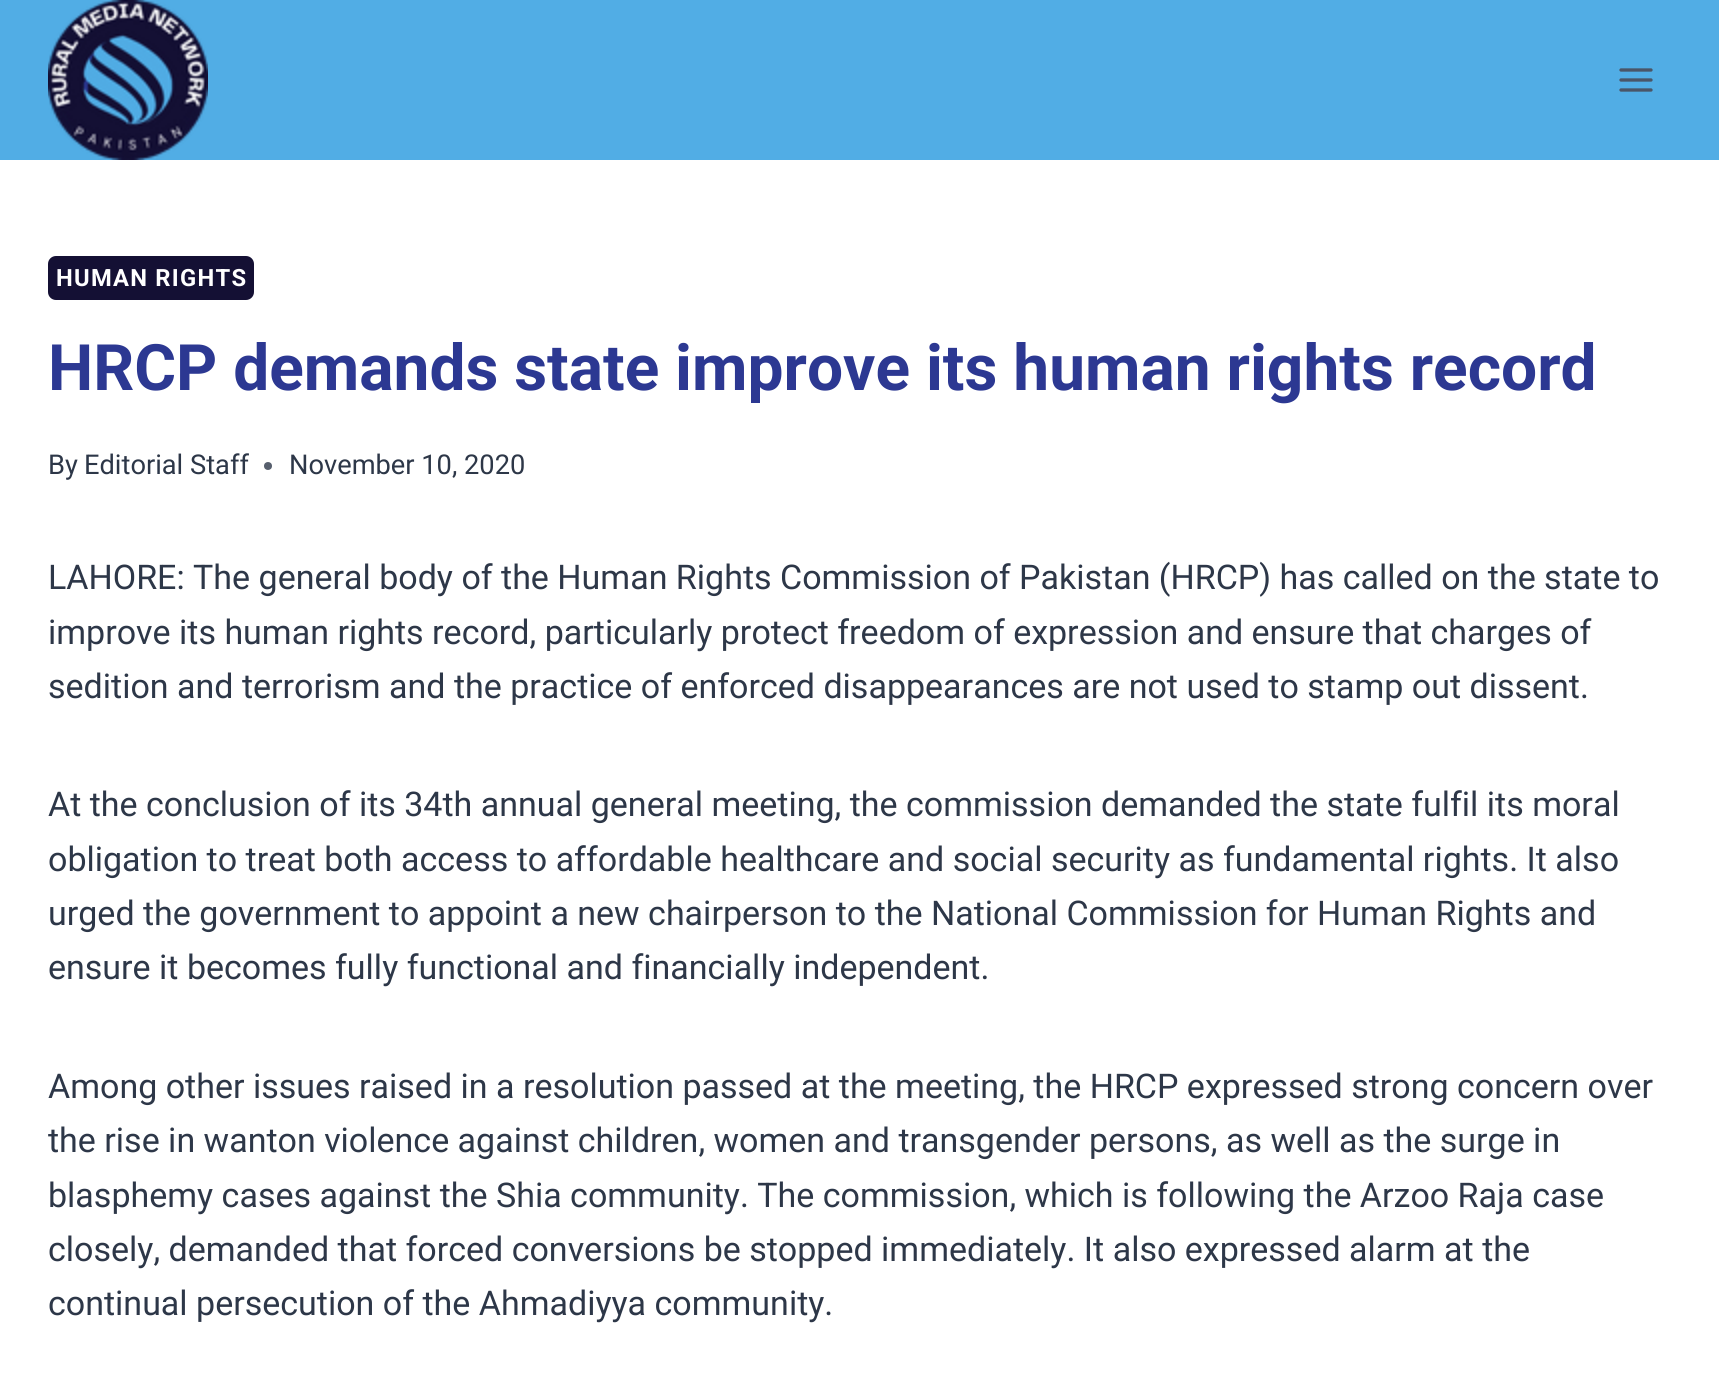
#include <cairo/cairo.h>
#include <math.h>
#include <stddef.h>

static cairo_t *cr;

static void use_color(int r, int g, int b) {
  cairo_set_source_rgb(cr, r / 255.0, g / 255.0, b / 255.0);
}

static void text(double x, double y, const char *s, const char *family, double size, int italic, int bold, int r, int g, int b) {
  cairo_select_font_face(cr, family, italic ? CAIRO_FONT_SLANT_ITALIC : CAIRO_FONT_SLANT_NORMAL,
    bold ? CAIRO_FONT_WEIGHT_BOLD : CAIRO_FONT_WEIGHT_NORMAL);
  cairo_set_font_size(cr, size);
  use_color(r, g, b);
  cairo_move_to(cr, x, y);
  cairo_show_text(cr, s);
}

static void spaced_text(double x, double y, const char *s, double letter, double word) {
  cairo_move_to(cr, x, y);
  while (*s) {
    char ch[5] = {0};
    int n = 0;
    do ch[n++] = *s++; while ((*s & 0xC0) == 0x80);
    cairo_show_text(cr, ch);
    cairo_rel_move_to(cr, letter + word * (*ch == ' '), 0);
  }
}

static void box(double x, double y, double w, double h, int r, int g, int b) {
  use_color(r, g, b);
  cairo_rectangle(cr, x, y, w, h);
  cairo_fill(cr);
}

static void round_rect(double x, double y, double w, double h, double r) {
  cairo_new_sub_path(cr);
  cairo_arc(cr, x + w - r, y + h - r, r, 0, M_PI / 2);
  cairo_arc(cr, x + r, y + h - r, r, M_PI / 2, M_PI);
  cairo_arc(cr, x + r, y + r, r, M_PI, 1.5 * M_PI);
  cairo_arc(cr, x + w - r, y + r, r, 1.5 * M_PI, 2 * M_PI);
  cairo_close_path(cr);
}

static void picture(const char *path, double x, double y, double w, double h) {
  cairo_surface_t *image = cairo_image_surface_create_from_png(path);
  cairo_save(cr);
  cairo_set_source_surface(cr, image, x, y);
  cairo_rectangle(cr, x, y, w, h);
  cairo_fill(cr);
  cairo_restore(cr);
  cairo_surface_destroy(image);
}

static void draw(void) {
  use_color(255, 255, 255);
  cairo_paint(cr);
  box(0, 0, 1719, 160, 81, 173, 229);
  picture("img_01.png", 48, 0, 160, 160);
  picture("img_02.png", 1619, 68, 34, 24);
  use_color(20, 16, 52);
  round_rect(48, 256, 206, 44, 8);
  cairo_fill(cr);
  use_color(87, 95, 109);
  cairo_arc(cr, 268, 466, 4, 0, 2 * M_PI);
  cairo_fill(cr);
  cairo_select_font_face(cr, "Roboto", CAIRO_FONT_SLANT_NORMAL, CAIRO_FONT_WEIGHT_BOLD);
  cairo_set_font_size(cr, 23.75);
  use_color(255, 255, 255);
  spaced_text(56, 286, "HUMAN RIGHTS", 1.25, 0);
  text(48, 390, "HRCP demands state improve its human rights record", "Roboto", 64, 0, 1, 44, 56, 146);
  text(48, 474, "By", "Roboto", 27.25, 0, 0, 45, 55, 72);
  text(84, 474, "Editorial Staff", "Roboto", 27.25, 0, 0, 45, 55, 72);
  text(289, 474, "November 10, 2020", "Roboto", 27.25, 0, 0, 45, 55, 72);
  text(48, 589, "LAHORE: The general body of the Human Rights Commission of Pakistan (HRCP) has called on the state to", "Roboto", 34, 0, 0, 45, 55, 72);
  text(48, 644, "improve its human rights record, particularly protect freedom of expression and ensure that charges of", "Roboto", 34, 0, 0, 45, 55, 72);
  text(48, 698, "sedition and terrorism and the practice of enforced disappearances are not used to stamp out dissent.", "Roboto", 34, 0, 0, 45, 55, 72);
  text(48, 816, "At the conclusion of its 34th annual general meeting, the commission demanded the state fulfil its moral", "Roboto", 34, 0, 0, 45, 55, 72);
  text(48, 871, "obligation to treat both access to affordable healthcare and social security as fundamental rights. It also", "Roboto", 34, 0, 0, 45, 55, 72);
  text(48, 925, "urged the government to appoint a new chairperson to the National Commission for Human Rights and", "Roboto", 34, 0, 0, 45, 55, 72);
  text(48, 979, "ensure it becomes fully functional and financially independent.", "Roboto", 34, 0, 0, 45, 55, 72);
  text(48, 1098, "Among other issues raised in a resolution passed at the meeting, the HRCP expressed strong concern over", "Roboto", 34, 0, 0, 45, 55, 72);
  text(48, 1152, "the rise in wanton violence against children, women and transgender persons, as well as the surge in", "Roboto", 34, 0, 0, 45, 55, 72);
  text(48, 1207, "blasphemy cases against the Shia community. The commission, which is following the Arzoo Raja case", "Roboto", 34, 0, 0, 45, 55, 72);
  text(48, 1261, "closely, demanded that forced conversions be stopped immediately. It also expressed alarm at the", "Roboto", 34, 0, 0, 45, 55, 72);
  text(48, 1315, "continual persecution of the Ahmadiyya community.", "Roboto", 34, 0, 0, 45, 55, 72);
}

int main(void) {
  cairo_surface_t *surface = cairo_image_surface_create(CAIRO_FORMAT_RGB24, 1719, 1376);
  cr = cairo_create(surface);
  cairo_font_options_t *options = cairo_font_options_create();
  cairo_font_options_set_hint_metrics(options, CAIRO_HINT_METRICS_OFF);
  cairo_font_options_set_hint_style(options, CAIRO_HINT_STYLE_NONE);
  cairo_set_font_options(cr, options);
  cairo_set_miter_limit(cr, 4);
  draw();
  cairo_surface_write_to_png(surface, "out.png");
  cairo_font_options_destroy(options);
  cairo_destroy(cr);
  cairo_surface_destroy(surface);
  return 0;
}
